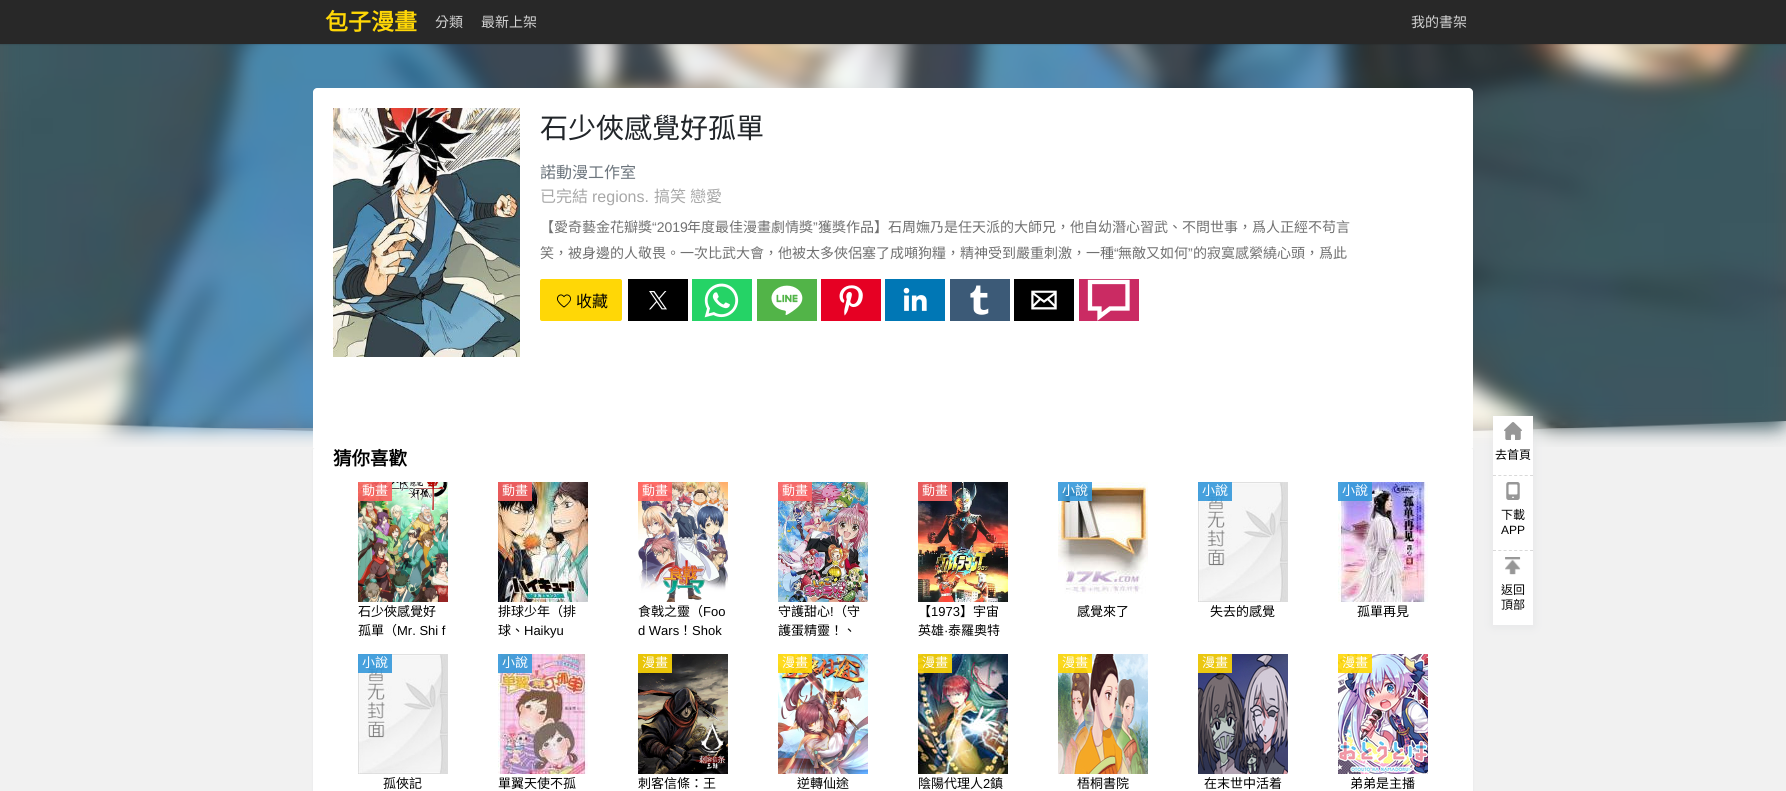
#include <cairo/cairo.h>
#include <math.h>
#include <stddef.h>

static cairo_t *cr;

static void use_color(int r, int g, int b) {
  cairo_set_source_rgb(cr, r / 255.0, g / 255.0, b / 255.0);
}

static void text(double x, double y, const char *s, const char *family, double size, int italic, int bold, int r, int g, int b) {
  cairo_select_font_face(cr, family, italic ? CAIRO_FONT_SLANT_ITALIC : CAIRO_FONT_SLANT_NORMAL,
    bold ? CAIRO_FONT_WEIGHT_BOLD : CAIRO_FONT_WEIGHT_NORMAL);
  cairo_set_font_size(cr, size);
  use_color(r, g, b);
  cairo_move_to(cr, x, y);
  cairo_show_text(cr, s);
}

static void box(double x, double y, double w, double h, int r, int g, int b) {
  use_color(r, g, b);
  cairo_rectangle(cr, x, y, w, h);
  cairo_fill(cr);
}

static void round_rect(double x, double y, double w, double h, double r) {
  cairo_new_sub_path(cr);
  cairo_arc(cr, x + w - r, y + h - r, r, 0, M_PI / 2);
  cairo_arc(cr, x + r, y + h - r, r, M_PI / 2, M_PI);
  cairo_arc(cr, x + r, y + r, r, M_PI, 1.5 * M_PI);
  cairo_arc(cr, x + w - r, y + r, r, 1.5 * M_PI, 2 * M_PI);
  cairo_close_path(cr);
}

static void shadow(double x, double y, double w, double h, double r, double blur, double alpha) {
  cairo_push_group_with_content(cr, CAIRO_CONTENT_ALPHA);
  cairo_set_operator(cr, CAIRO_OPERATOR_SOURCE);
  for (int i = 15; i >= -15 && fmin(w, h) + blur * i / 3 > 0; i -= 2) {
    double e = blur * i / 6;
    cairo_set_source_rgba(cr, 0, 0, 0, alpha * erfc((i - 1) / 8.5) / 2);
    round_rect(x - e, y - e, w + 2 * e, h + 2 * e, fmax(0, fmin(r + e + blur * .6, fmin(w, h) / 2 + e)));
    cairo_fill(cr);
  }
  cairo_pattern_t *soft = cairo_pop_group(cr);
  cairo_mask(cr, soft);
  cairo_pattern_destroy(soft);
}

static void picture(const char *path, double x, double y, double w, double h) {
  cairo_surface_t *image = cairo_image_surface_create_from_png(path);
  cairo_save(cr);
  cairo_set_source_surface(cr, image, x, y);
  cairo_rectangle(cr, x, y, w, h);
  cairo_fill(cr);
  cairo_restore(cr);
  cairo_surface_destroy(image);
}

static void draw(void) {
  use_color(241, 241, 241);
  cairo_paint(cr);
  box(186, 428, 1414, 3, 183, 179, 177);
  picture("img_01.png", 0, 44, 1786, 384);
  picture("img_12.png", 0, 421, 1786, 17);
  use_color(106, 115, 133);
  shadow(313, 449, 1160, 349, 2, 1.5, 0.08);
  picture("img_02.png", 0, 44, 1786, 403);
  use_color(0, 0, 0);
  shadow(0, 1, 1786, 44, 0, 0.5, 0.1);
  box(0, 0, 1786, 44, 40, 40, 40);
  use_color(255, 255, 255);
  cairo_new_path(cr);
  cairo_move_to(cr, 317, 88);
  cairo_line_to(cr, 1469, 88);
  cairo_curve_to(cr, 1471, 88, 1473, 90, 1473, 92);
  cairo_line_to(cr, 1473, 448);
  cairo_line_to(cr, 313, 448);
  cairo_line_to(cr, 313, 92);
  cairo_curve_to(cr, 313, 90, 315, 88, 317, 88);
  cairo_close_path(cr);
  cairo_fill(cr);
  picture("img_03.png", 333, 108, 187, 249);
  use_color(255, 215, 6);
  round_rect(540, 279, 82, 42, 2);
  cairo_fill(cr);
  picture("img_04.png", 557, 294, 14, 14);
  box(628, 279, 60, 42, 0, 0, 0);
  picture("img_05.png", 649, 291, 18, 19);
  box(692, 279, 60, 42, 37, 211, 102);
  picture("img_06.png", 704, 283, 35, 35);
  box(757, 279, 60, 42, 82, 180, 72);
  picture("img_07.png", 771, 285, 32, 30);
  box(821, 279, 60, 42, 230, 0, 35);
  picture("img_08.png", 839, 285, 24, 31);
  box(885, 279, 60, 42, 0, 119, 181);
  picture("img_09.png", 903, 287, 24, 24);
  box(950, 279, 60, 42, 60, 90, 119);
  picture("img_10.png", 970, 285, 19, 30);
  box(1014, 279, 60, 42, 0, 0, 0);
  picture("img_11.png", 1031, 290, 26, 20);
  box(1079, 279, 60, 42, 202, 43, 99);
  cairo_new_path(cr);
  cairo_move_to(cr, 1099.5, 316.5);
  cairo_line_to(cr, 1099.5, 308.5);
  cairo_line_to(cr, 1090, 308.5);
  cairo_line_to(cr, 1090, 282);
  cairo_line_to(cr, 1127.5, 282);
  cairo_line_to(cr, 1127.5, 308.5);
  cairo_line_to(cr, 1110, 308.5);
  cairo_close_path(cr);
  use_color(255, 255, 255);
  cairo_set_line_width(cr, 4.3);
  cairo_stroke(cr);
  round_rect(313, 448, 1160, 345, 2);
  cairo_fill(cr);
  picture("img_13.png", 358, 482, 90, 120);
  cairo_set_source_rgba(cr, 1, 0.388, 0.388, 0.9);
  cairo_rectangle(cr, 358, 482, 34, 19);
  cairo_fill(cr);
  picture("img_14.png", 498, 482, 90, 120);
  cairo_rectangle(cr, 498, 482, 34, 19);
  cairo_fill(cr);
  picture("img_15.png", 638, 482, 90, 120);
  cairo_rectangle(cr, 638, 482, 34, 19);
  cairo_fill(cr);
  picture("img_16.png", 778, 482, 90, 120);
  cairo_rectangle(cr, 778, 482, 34, 19);
  cairo_fill(cr);
  picture("img_17.png", 918, 482, 90, 120);
  cairo_rectangle(cr, 918, 482, 34, 19);
  cairo_fill(cr);
  picture("img_18.png", 1058, 482, 90, 112);
  cairo_set_source_rgba(cr, 0.204, 0.596, 0.859, 0.9);
  cairo_rectangle(cr, 1058, 482, 34, 19);
  cairo_fill(cr);
  picture("img_19.png", 1198, 482, 90, 120);
  cairo_rectangle(cr, 1198, 482, 34, 19);
  cairo_fill(cr);
  picture("img_20.png", 1338, 482, 90, 120);
  cairo_rectangle(cr, 1338, 482, 34, 19);
  cairo_fill(cr);
  picture("img_21.png", 358, 654, 90, 120);
  cairo_rectangle(cr, 358, 654, 34, 19);
  cairo_fill(cr);
  picture("img_22.png", 498, 654, 90, 120);
  cairo_rectangle(cr, 498, 654, 34, 19);
  cairo_fill(cr);
  picture("img_23.png", 638, 654, 90, 120);
  cairo_set_source_rgba(cr, 1, 0.843, 0.024, 0.9);
  cairo_rectangle(cr, 638, 654, 34, 19);
  cairo_fill(cr);
  picture("img_24.png", 778, 654, 90, 120);
  cairo_rectangle(cr, 778, 654, 34, 19);
  cairo_fill(cr);
  picture("img_25.png", 918, 654, 90, 120);
  cairo_rectangle(cr, 918, 654, 34, 19);
  cairo_fill(cr);
  picture("img_26.png", 1058, 654, 90, 120);
  cairo_rectangle(cr, 1058, 654, 34, 19);
  cairo_fill(cr);
  picture("img_27.png", 1198, 654, 90, 120);
  cairo_rectangle(cr, 1198, 654, 34, 19);
  cairo_fill(cr);
  picture("img_28.png", 1338, 654, 90, 120);
  cairo_rectangle(cr, 1338, 654, 34, 19);
  cairo_fill(cr);
  use_color(106, 115, 133);
  shadow(1493, 417, 40, 209, 0, 5, 0.1);
  box(1493, 416, 40, 209, 255, 255, 255);
  picture("img_29.png", 1504, 422, 18, 18);
  cairo_new_path(cr);
  cairo_move_to(cr, 1493, 475.5);
  cairo_line_to(cr, 1533, 475.5);
  use_color(217, 217, 217);
  cairo_set_line_width(cr, 1);
  cairo_set_dash(cr, (double[]){3, 2.29}, 2, 0);
  cairo_stroke(cr);
  picture("img_30.png", 1506, 482, 14, 18);
  cairo_new_path(cr);
  cairo_move_to(cr, 1493, 550.5);
  cairo_line_to(cr, 1533, 550.5);
  cairo_stroke(cr);
  picture("img_31.png", 1505, 557, 16, 18);
  text(325, 30, "包子漫畫", "Noto Sans CJK TC", 23, 0, 1, 255, 215, 6);
  text(435, 27, "分類", "Noto Sans CJK TC", 14, 0, 0, 212, 212, 212);
  text(481, 27, "最新上架", "Noto Sans CJK TC", 14, 0, 0, 212, 212, 212);
  text(1411, 27, "我的書架", "Noto Sans CJK TC", 14, 0, 0, 212, 212, 212);
  text(540, 138, "石少俠感覺好孤單", "Noto Sans CJK TC", 28, 0, 0, 33, 37, 41);
  text(540, 178, "諾動漫工作室", "Noto Sans CJK TC", 16, 0, 0, 108, 117, 125);
  text(540, 202, "已完結", "Noto Sans CJK TC", 16, 0, 0, 168, 168, 168);
  text(592, 202, "regions.", "Liberation Sans", 16, 0, 0, 168, 168, 168);
  text(654, 202, "搞笑", "Noto Sans CJK TC", 16, 0, 0, 168, 168, 168);
  text(690, 202, "戀愛", "Noto Sans CJK TC", 16, 0, 0, 168, 168, 168);
  text(540, 232, "【愛奇藝金花瓣獎", "Noto Sans CJK TC", 14, 0, 0, 112, 112, 112);
  text(652, 232, "“2019", "Liberation Sans", 14, 0, 0, 112, 112, 112);
  text(687, 232, "年度最佳漫畫劇情獎", "Noto Sans CJK TC", 14, 0, 0, 112, 112, 112);
  text(813, 232, "”", "Liberation Sans", 14, 0, 0, 112, 112, 112);
  text(818, 232, "獲獎作品】石周嫵乃是任天派的大師兄，他自幼潛心習武、不問世事，爲人正經不苟言", "Noto Sans CJK TC", 14, 0, 0, 112, 112, 112);
  text(540, 258, "笑，被身邊的人敬畏。一次比武大會，他被太多俠侶塞了成噸狗糧，精神受到嚴重刺激，一種", "Noto Sans CJK TC", 14, 0, 0, 112, 112, 112);
  text(1114, 258, "“", "Liberation Sans", 14, 0, 0, 112, 112, 112);
  text(1118, 258, "無敵又如何", "Noto Sans CJK TC", 14, 0, 0, 112, 112, 112);
  text(1188, 258, "”", "Liberation Sans", 14, 0, 0, 112, 112, 112);
  text(1193, 258, "的寂寞感縈繞心頭，爲此", "Noto Sans CJK TC", 14, 0, 0, 112, 112, 112);
  text(576, 307, "收藏", "Noto Sans CJK TC", 16, 0, 0, 0, 0, 0);
  text(333, 465, "猜你喜歡", "Noto Sans CJK TC", 18.5, 0, 1, 0, 0, 0);
  text(362, 495, "動畫", "Noto Sans CJK TC", 13, 0, 0, 255, 255, 255);
  text(358, 616, "石少俠感覺好", "Noto Sans CJK TC", 13, 0, 0, 0, 0, 0);
  text(358, 635, "孤單（", "Noto Sans CJK TC", 13, 0, 0, 0, 0, 0);
  text(397, 635, "Mr. Shi f", "Liberation Sans", 13, 0, 0, 0, 0, 0);
  text(502, 495, "動畫", "Noto Sans CJK TC", 13, 0, 0, 255, 255, 255);
  text(498, 616, "排球少年（排", "Noto Sans CJK TC", 13, 0, 0, 0, 0, 0);
  text(498, 635, "球、", "Noto Sans CJK TC", 13, 0, 0, 0, 0, 0);
  text(524, 635, "Haikyu", "Liberation Sans", 13, 0, 0, 0, 0, 0);
  text(642, 495, "動畫", "Noto Sans CJK TC", 13, 0, 0, 255, 255, 255);
  text(638, 616, "食戟之靈（", "Noto Sans CJK TC", 13, 0, 0, 0, 0, 0);
  text(703, 616, "Foo", "Liberation Sans", 13, 0, 0, 0, 0, 0);
  text(638, 635, "d Wars", "Liberation Sans", 13, 0, 0, 0, 0, 0);
  text(679, 635, "！", "Noto Sans CJK TC", 13, 0, 0, 0, 0, 0);
  text(692, 635, "Shok", "Liberation Sans", 13, 0, 0, 0, 0, 0);
  text(782, 495, "動畫", "Noto Sans CJK TC", 13, 0, 0, 255, 255, 255);
  text(778, 616, "守護甜心", "Noto Sans CJK TC", 13, 0, 0, 0, 0, 0);
  text(830, 616, "!", "Liberation Sans", 13, 0, 0, 0, 0, 0);
  text(834, 616, "（守", "Noto Sans CJK TC", 13, 0, 0, 0, 0, 0);
  text(778, 635, "護蛋精靈！、", "Noto Sans CJK TC", 13, 0, 0, 0, 0, 0);
  text(922, 495, "動畫", "Noto Sans CJK TC", 13, 0, 0, 255, 255, 255);
  text(918, 616, "【", "Noto Sans CJK TC", 13, 0, 0, 0, 0, 0);
  text(931, 616, "1973", "Liberation Sans", 13, 0, 0, 0, 0, 0);
  text(960, 616, "】宇宙", "Noto Sans CJK TC", 13, 0, 0, 0, 0, 0);
  text(918, 635, "英雄", "Noto Sans CJK TC", 13, 0, 0, 0, 0, 0);
  text(944, 635, "·", "Liberation Sans", 13, 0, 0, 0, 0, 0);
  text(948, 635, "泰羅奧特", "Noto Sans CJK TC", 13, 0, 0, 0, 0, 0);
  text(1062, 495, "小說", "Noto Sans CJK TC", 13, 0, 0, 255, 255, 255);
  text(1077, 616, "感覺來了", "Noto Sans CJK TC", 13, 0, 0, 0, 0, 0);
  text(1202, 495, "小說", "Noto Sans CJK TC", 13, 0, 0, 255, 255, 255);
  text(1210, 616, "失去的感覺", "Noto Sans CJK TC", 13, 0, 0, 0, 0, 0);
  text(1342, 495, "小說", "Noto Sans CJK TC", 13, 0, 0, 255, 255, 255);
  text(1357, 616, "孤單再見", "Noto Sans CJK TC", 13, 0, 0, 0, 0, 0);
  text(362, 667, "小說", "Noto Sans CJK TC", 13, 0, 0, 255, 255, 255);
  text(383, 788, "孤俠記", "Noto Sans CJK TC", 13, 0, 0, 0, 0, 0);
  text(502, 667, "小說", "Noto Sans CJK TC", 13, 0, 0, 255, 255, 255);
  text(498, 788, "單翼天使不孤", "Noto Sans CJK TC", 13, 0, 0, 0, 0, 0);
  text(642, 667, "漫畫", "Noto Sans CJK TC", 13, 0, 0, 255, 255, 255);
  text(638, 788, "刺客信條：王", "Noto Sans CJK TC", 13, 0, 0, 0, 0, 0);
  text(782, 667, "漫畫", "Noto Sans CJK TC", 13, 0, 0, 255, 255, 255);
  text(797, 788, "逆轉仙途", "Noto Sans CJK TC", 13, 0, 0, 0, 0, 0);
  text(922, 667, "漫畫", "Noto Sans CJK TC", 13, 0, 0, 255, 255, 255);
  text(918, 788, "陰陽代理人", "Noto Sans CJK TC", 13, 0, 0, 0, 0, 0);
  text(983, 788, "2", "Liberation Sans", 13, 0, 0, 0, 0, 0);
  text(990, 788, "鎮", "Noto Sans CJK TC", 13, 0, 0, 0, 0, 0);
  text(1062, 667, "漫畫", "Noto Sans CJK TC", 13, 0, 0, 255, 255, 255);
  text(1077, 788, "梧桐書院", "Noto Sans CJK TC", 13, 0, 0, 0, 0, 0);
  text(1202, 667, "漫畫", "Noto Sans CJK TC", 13, 0, 0, 255, 255, 255);
  text(1204, 788, "在末世中活着", "Noto Sans CJK TC", 13, 0, 0, 0, 0, 0);
  text(1342, 667, "漫畫", "Noto Sans CJK TC", 13, 0, 0, 255, 255, 255);
  text(1350, 788, "弟弟是主播", "Noto Sans CJK TC", 13, 0, 0, 0, 0, 0);
  text(1495, 459, "去首頁", "Noto Sans CJK TC", 12, 0, 0, 0, 0, 0);
  text(1501, 519, "下載", "Noto Sans CJK TC", 12, 0, 0, 0, 0, 0);
  text(1501, 534, "APP", "Liberation Sans", 12, 0, 0, 0, 0, 0);
  text(1501, 594, "返回", "Noto Sans CJK TC", 12, 0, 0, 0, 0, 0);
  text(1501, 609, "頂部", "Noto Sans CJK TC", 12, 0, 0, 0, 0, 0);
}

int main(void) {
  cairo_surface_t *surface = cairo_image_surface_create(CAIRO_FORMAT_RGB24, 1786, 791);
  cr = cairo_create(surface);
  cairo_font_options_t *options = cairo_font_options_create();
  cairo_font_options_set_hint_metrics(options, CAIRO_HINT_METRICS_OFF);
  cairo_font_options_set_hint_style(options, CAIRO_HINT_STYLE_NONE);
  cairo_set_font_options(cr, options);
  cairo_set_miter_limit(cr, 4);
  draw();
  cairo_surface_write_to_png(surface, "out.png");
  cairo_font_options_destroy(options);
  cairo_destroy(cr);
  cairo_surface_destroy(surface);
  return 0;
}
